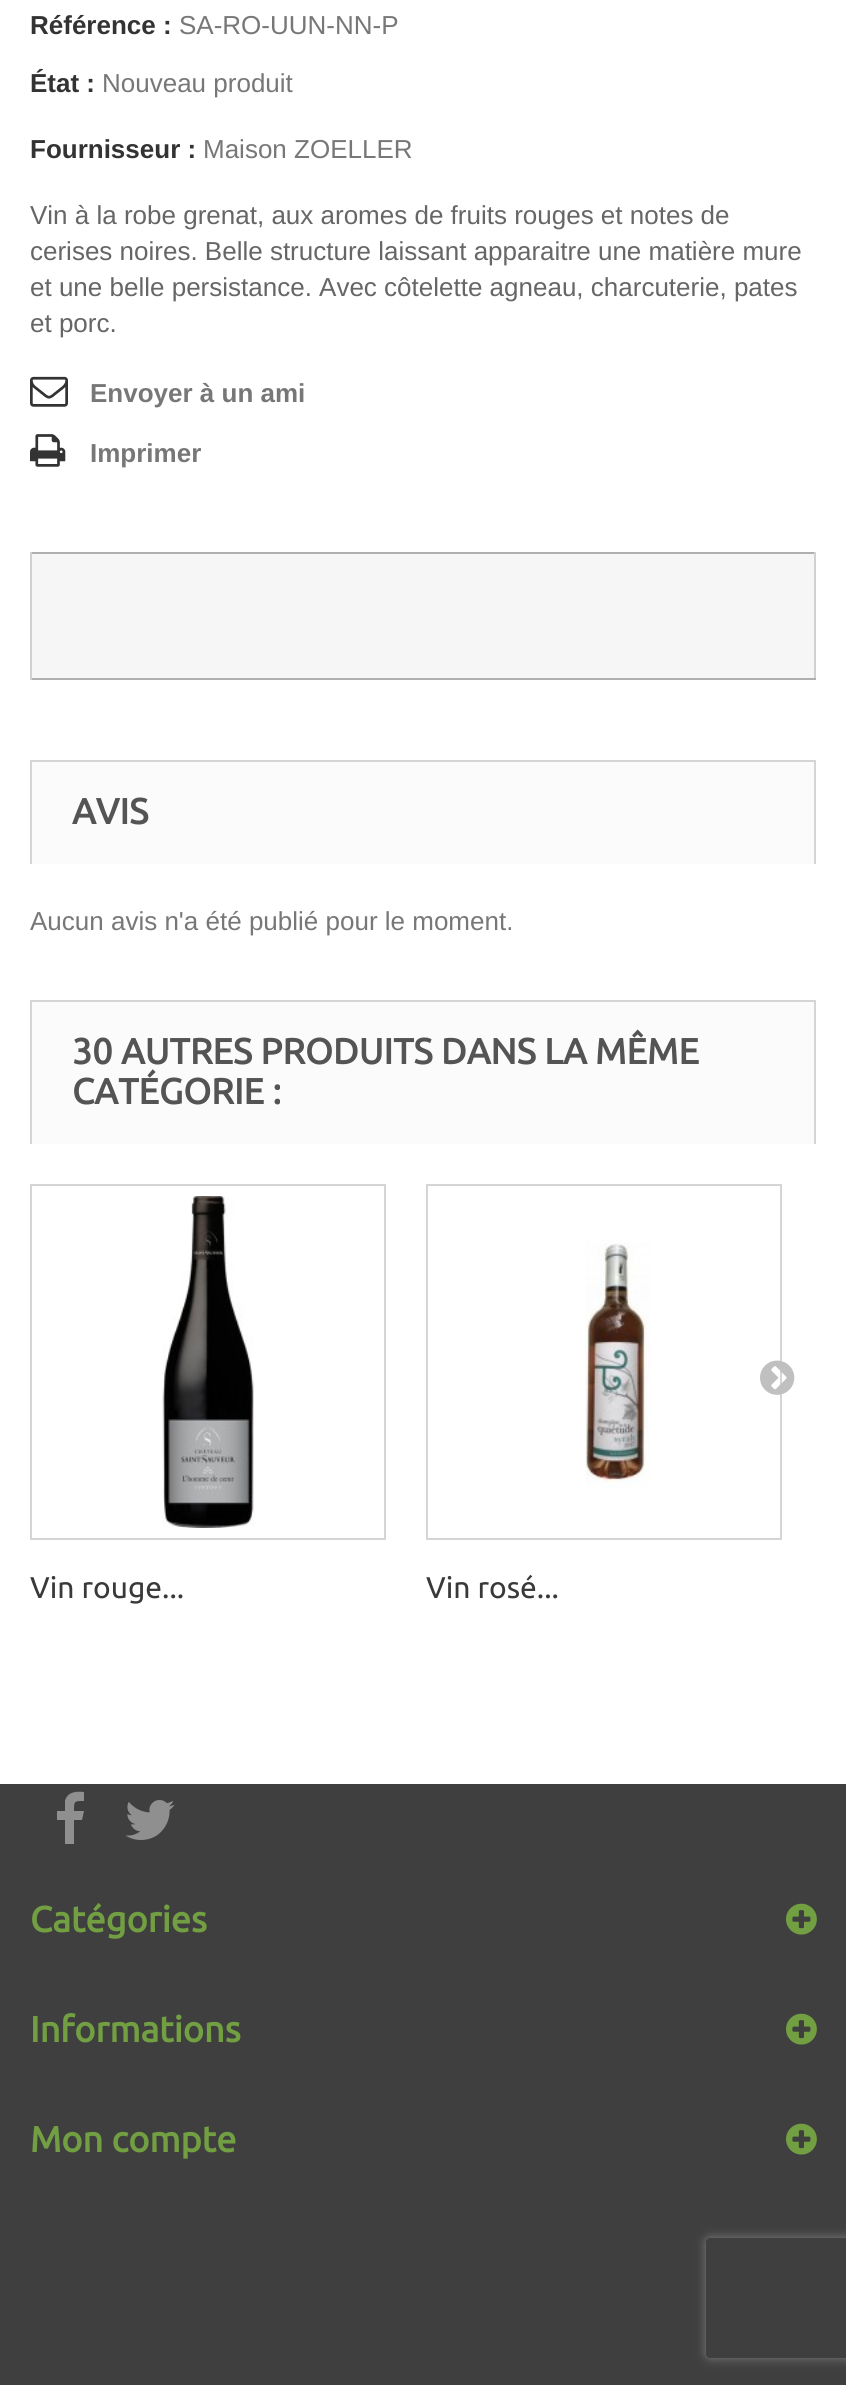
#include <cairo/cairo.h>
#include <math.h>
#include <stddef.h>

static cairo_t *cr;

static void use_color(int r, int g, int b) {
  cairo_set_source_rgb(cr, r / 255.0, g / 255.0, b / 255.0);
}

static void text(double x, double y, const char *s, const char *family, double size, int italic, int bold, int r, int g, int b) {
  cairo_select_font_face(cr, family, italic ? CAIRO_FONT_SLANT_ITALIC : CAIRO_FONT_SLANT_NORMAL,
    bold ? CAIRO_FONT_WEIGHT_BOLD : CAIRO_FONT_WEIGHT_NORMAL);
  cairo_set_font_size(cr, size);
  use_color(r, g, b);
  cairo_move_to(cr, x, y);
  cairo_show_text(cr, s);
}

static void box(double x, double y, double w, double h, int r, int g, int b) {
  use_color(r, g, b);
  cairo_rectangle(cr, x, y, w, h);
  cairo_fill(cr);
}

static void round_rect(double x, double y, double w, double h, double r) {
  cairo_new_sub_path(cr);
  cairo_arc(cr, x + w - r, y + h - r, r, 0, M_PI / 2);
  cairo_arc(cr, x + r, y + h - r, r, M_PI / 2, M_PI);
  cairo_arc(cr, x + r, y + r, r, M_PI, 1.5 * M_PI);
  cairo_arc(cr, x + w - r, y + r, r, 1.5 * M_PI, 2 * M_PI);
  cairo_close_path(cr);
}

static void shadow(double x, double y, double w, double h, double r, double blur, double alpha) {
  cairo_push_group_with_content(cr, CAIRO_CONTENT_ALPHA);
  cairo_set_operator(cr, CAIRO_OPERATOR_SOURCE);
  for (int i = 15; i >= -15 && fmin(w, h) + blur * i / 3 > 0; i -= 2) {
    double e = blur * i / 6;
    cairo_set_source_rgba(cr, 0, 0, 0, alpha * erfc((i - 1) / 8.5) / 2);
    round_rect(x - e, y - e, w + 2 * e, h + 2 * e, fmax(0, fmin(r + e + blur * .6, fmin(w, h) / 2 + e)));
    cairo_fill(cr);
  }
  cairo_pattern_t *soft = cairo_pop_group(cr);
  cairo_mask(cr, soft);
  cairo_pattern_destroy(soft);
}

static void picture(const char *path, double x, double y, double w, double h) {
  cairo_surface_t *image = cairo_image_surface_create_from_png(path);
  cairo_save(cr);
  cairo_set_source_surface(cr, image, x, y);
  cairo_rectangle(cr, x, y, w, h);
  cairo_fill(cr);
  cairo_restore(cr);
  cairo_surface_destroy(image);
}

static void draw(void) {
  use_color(255, 255, 255);
  cairo_paint(cr);
  picture("img_01.png", 30, 376, 38, 31);
  picture("img_02.png", 30, 434, 36, 33);
  box(32, 554, 782, 124, 246, 246, 246);
  box(30, 552, 786, 2, 176, 175, 175);
  box(814, 552, 2, 128, 210, 208, 208);
  box(30, 678, 786, 2, 176, 175, 175);
  box(30, 552, 2, 128, 210, 208, 208);
  box(32, 762, 782, 102, 251, 251, 251);
  box(30, 760, 786, 2, 214, 212, 212);
  box(814, 760, 2, 104, 214, 212, 212);
  box(30, 760, 2, 104, 214, 212, 212);
  box(32, 1002, 782, 142, 251, 251, 251);
  box(30, 1000, 786, 2, 214, 212, 212);
  box(814, 1000, 2, 144, 214, 212, 212);
  box(30, 1000, 2, 144, 214, 212, 212);
  cairo_rectangle(cr, 427, 1185, 354, 354);
  cairo_stroke(cr);
  picture("img_03.png", 760, 1360, 35, 35);
  cairo_rectangle(cr, 31, 1185, 354, 354);
  cairo_stroke(cr);
  picture("img_04.png", 162, 1196, 92, 332);
  picture("img_05.png", 585, 1240, 66, 248);
  box(0, 1784, 846, 601, 63, 63, 63);
  use_color(144, 143, 143);
  cairo_new_path(cr);
  cairo_move_to(cr, 84, 1792);
  cairo_line_to(cr, 84, 1801);
  cairo_curve_to(cr, 74, 1801, 74, 1801, 74, 1811);
  cairo_line_to(cr, 84, 1811);
  cairo_line_to(cr, 82, 1820);
  cairo_line_to(cr, 74, 1820);
  cairo_line_to(cr, 74, 1844);
  cairo_line_to(cr, 65, 1844);
  cairo_line_to(cr, 65, 1820);
  cairo_line_to(cr, 57, 1820);
  cairo_line_to(cr, 57, 1811);
  cairo_line_to(cr, 65, 1811);
  cairo_line_to(cr, 65, 1801);
  cairo_curve_to(cr, 67, 1792, 76, 1791, 84, 1792);
  cairo_close_path(cr);
  cairo_fill(cr);
  picture("img_06.png", 125, 1800, 50, 40);
  picture("img_07.png", 786, 1903, 31, 32);
  picture("img_07.png", 786, 2013, 31, 32);
  picture("img_07.png", 786, 2123, 31, 32);
  cairo_save(cr);
  cairo_set_fill_rule(cr, CAIRO_FILL_RULE_EVEN_ODD);
  cairo_new_path(cr);
  cairo_move_to(cr, 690, 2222);
  cairo_line_to(cr, 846, 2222);
  cairo_line_to(cr, 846, 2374);
  cairo_line_to(cr, 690, 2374);
  cairo_close_path(cr);
  cairo_move_to(cr, 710, 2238);
  cairo_line_to(cr, 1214, 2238);
  cairo_curve_to(cr, 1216, 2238, 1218, 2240, 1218, 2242);
  cairo_line_to(cr, 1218, 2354);
  cairo_curve_to(cr, 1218, 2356, 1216, 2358, 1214, 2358);
  cairo_line_to(cr, 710, 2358);
  cairo_curve_to(cr, 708, 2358, 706, 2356, 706, 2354);
  cairo_line_to(cr, 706, 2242);
  cairo_curve_to(cr, 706, 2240, 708, 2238, 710, 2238);
  cairo_close_path(cr);
  cairo_clip(cr);
  use_color(128, 128, 128);
  shadow(706, 2238, 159, 120, 4, 5, 1);
  cairo_restore(cr);
  text(30, 34, "Référence :", "Liberation Sans", 26, 0, 1, 51, 51, 51);
  text(179, 34, "SA-RO-UUN-NN-P", "Liberation Sans", 26, 0, 0, 119, 119, 119);
  text(30, 92, "État :", "Liberation Sans", 26, 0, 1, 51, 51, 51);
  text(102, 92, "Nouveau produit", "Liberation Sans", 26, 0, 0, 119, 119, 119);
  text(30, 158, "Fournisseur :", "Liberation Sans", 26, 0, 1, 51, 51, 51);
  text(203, 158, "Maison ZOELLER", "Liberation Sans", 26, 0, 0, 119, 119, 119);
  text(30, 224, "Vin à la robe grenat, aux aromes de fruits rouges et notes de", "Liberation Sans", 26, 0, 0, 102, 102, 102);
  text(30, 260, "cerises noires. Belle structure laissant apparaitre une matière mure", "Liberation Sans", 26, 0, 0, 102, 102, 102);
  text(30, 296, "et une belle persistance. Avec côtelette agneau, charcuterie, pates", "Liberation Sans", 26, 0, 0, 102, 102, 102);
  text(30, 332, "et porc.", "Liberation Sans", 26, 0, 0, 102, 102, 102);
  text(90, 402, "Envoyer à un ami", "Liberation Sans", 26, 0, 1, 119, 119, 119);
  text(90, 462, "Imprimer", "Liberation Sans", 26, 0, 1, 119, 119, 119);
  text(72, 824, "AVIS", "Ubuntu", 36, 0, 1, 85, 84, 84);
  text(30, 930, "Aucun avis n'a été publié pour le moment.", "Liberation Sans", 26, 0, 0, 119, 119, 119);
  text(72, 1064, "30 AUTRES PRODUITS DANS LA MÊME", "Ubuntu", 36, 0, 1, 85, 84, 84);
  text(72, 1104, "CATÉGORIE :", "Ubuntu", 36, 0, 1, 85, 84, 84);
  text(30, 1598, "Vin rouge...", "Ubuntu", 30, 0, 0, 58, 57, 57);
  text(426, 1598, "Vin rosé...", "Ubuntu", 30, 0, 0, 58, 57, 57);
  text(30, 1932, "Catégories", "Ubuntu", 36, 0, 1, 113, 159, 65);
  text(30, 2042, "Informations", "Ubuntu", 36, 0, 1, 113, 159, 65);
  text(30, 2152, "Mon compte", "Ubuntu", 36, 0, 1, 113, 159, 65);
}

int main(void) {
  cairo_surface_t *surface = cairo_image_surface_create(CAIRO_FORMAT_RGB24, 846, 2385);
  cr = cairo_create(surface);
  cairo_font_options_t *options = cairo_font_options_create();
  cairo_font_options_set_hint_metrics(options, CAIRO_HINT_METRICS_OFF);
  cairo_font_options_set_hint_style(options, CAIRO_HINT_STYLE_NONE);
  cairo_set_font_options(cr, options);
  cairo_set_miter_limit(cr, 4);
  draw();
  cairo_surface_write_to_png(surface, "out.png");
  cairo_font_options_destroy(options);
  cairo_destroy(cr);
  cairo_surface_destroy(surface);
  return 0;
}
